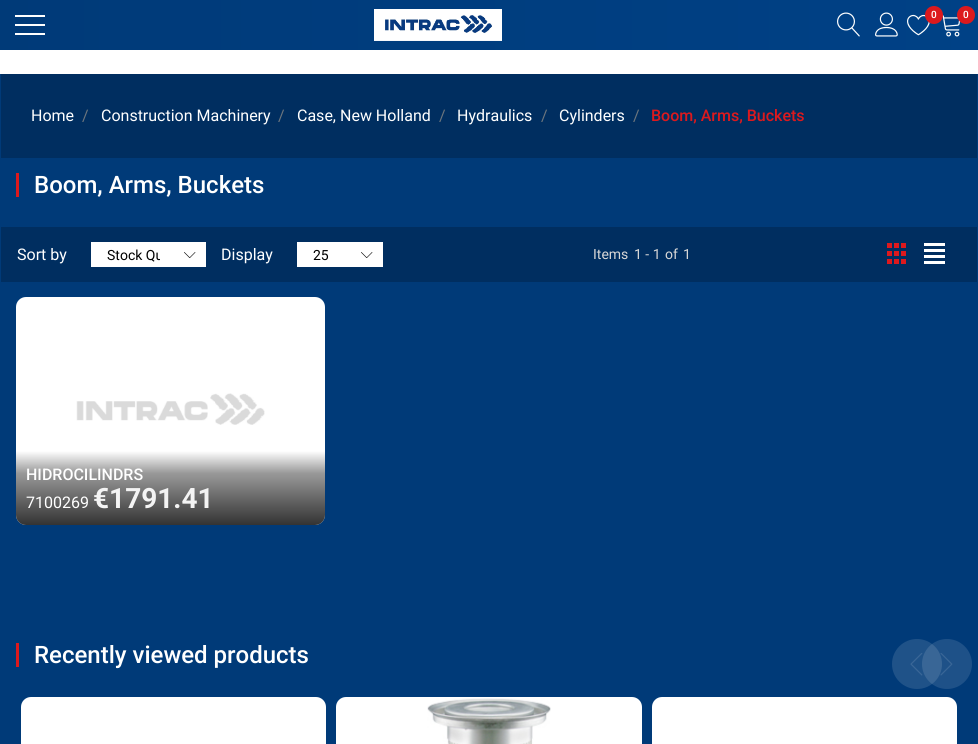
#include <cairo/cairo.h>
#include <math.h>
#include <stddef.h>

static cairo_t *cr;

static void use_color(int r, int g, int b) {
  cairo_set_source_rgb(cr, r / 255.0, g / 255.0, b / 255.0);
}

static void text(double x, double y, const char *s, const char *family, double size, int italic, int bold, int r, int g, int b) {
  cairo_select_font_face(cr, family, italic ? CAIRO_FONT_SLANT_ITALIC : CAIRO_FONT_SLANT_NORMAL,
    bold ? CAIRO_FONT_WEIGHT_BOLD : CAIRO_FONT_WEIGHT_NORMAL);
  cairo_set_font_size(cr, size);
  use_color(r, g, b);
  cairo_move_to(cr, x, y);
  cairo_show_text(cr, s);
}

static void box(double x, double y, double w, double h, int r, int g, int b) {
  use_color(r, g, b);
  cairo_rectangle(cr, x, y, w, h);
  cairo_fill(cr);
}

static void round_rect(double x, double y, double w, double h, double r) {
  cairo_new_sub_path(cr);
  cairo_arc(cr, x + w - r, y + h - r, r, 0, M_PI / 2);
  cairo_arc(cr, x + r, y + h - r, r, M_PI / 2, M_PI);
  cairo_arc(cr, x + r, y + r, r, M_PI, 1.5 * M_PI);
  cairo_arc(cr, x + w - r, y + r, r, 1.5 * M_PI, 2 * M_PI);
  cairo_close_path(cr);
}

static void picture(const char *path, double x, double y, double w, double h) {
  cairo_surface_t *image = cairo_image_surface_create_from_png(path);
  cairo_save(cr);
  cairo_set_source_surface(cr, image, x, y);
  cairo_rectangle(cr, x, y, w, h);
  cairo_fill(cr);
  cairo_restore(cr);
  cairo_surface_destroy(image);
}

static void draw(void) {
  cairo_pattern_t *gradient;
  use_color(255, 255, 255);
  cairo_paint(cr);
  box(0, 74, 978, 670, 0, 58, 120);
  gradient = cairo_pattern_create_linear(978, 25, 0, 25);
  cairo_pattern_add_color_stop_rgba(gradient, 0, 0, 0.255, 0.525, 1);
  cairo_pattern_add_color_stop_rgba(gradient, 1, 0, 0.227, 0.471, 1);
  cairo_set_source(cr, gradient);
  cairo_pattern_destroy(gradient);
  cairo_rectangle(cr, 0, 0, 978, 50);
  cairo_fill(cr);
  box(15, 15, 30, 2, 255, 255, 255);
  box(15, 24, 30, 2, 255, 255, 255);
  box(15, 33, 30, 2, 255, 255, 255);
  picture("img_01.png", 374, 9, 128, 32);
  picture("img_02.png", 837, 12, 23, 25);
  picture("img_03.png", 875, 12, 23, 25);
  picture("img_04.png", 907, 14, 23, 22);
  picture("img_05.png", 942, 14, 19, 23);
  use_color(221, 25, 29);
  cairo_arc(cr, 934, 15, 9, 0, 2 * M_PI);
  cairo_fill(cr);
  cairo_arc(cr, 966, 15, 9, 0, 2 * M_PI);
  cairo_fill(cr);
  box(1, 74, 976, 84, 0, 46, 96);
  box(16, 173, 3, 24, 221, 25, 29);
  box(1, 227, 976, 55, 0, 46, 96);
  box(91, 242, 115, 25, 255, 255, 255);
  picture("img_06.png", 184, 252, 12, 6);
  box(297, 242, 86, 25, 255, 255, 255);
  picture("img_06.png", 361, 252, 12, 6);
  box(887, 243, 5, 5, 221, 25, 29);
  box(894, 243, 5, 5, 221, 25, 29);
  box(901, 243, 5, 5, 221, 25, 29);
  box(887, 251, 5, 5, 221, 25, 29);
  box(894, 251, 5, 5, 221, 25, 29);
  box(901, 251, 5, 5, 221, 25, 29);
  box(887, 259, 5, 5, 221, 25, 29);
  box(894, 259, 5, 5, 221, 25, 29);
  box(901, 259, 5, 5, 221, 25, 29);
  box(924, 243, 21, 3, 255, 255, 255);
  box(924, 249, 21, 3, 255, 255, 255);
  box(924, 255, 21, 3, 255, 255, 255);
  box(924, 261, 21, 3, 255, 255, 255);
  round_rect(16, 297, 309, 228, 10);
  cairo_fill(cr);
  picture("img_07.png", 76, 393, 189, 32);
  gradient = cairo_pattern_create_linear(171, 451, 171, 525);
  cairo_pattern_add_color_stop_rgba(gradient, 0, 0, 0, 0, 0);
  cairo_pattern_add_color_stop_rgba(gradient, 0.3, 0, 0, 0, 0.4);
  cairo_pattern_add_color_stop_rgba(gradient, 1, 0, 0, 0, 0.8);
  cairo_set_source(cr, gradient);
  cairo_pattern_destroy(gradient);
  cairo_new_path(cr);
  cairo_move_to(cr, 16, 451);
  cairo_line_to(cr, 325, 451);
  cairo_line_to(cr, 325, 515);
  cairo_curve_to(cr, 325, 520.5, 320.5, 525, 315, 525);
  cairo_line_to(cr, 26, 525);
  cairo_curve_to(cr, 20.5, 525, 16, 520.5, 16, 515);
  cairo_close_path(cr);
  cairo_fill(cr);
  box(16, 643, 3, 24, 221, 25, 29);
  use_color(31, 82, 136);
  cairo_arc(cr, 917, 664, 25, 0, 2 * M_PI);
  cairo_fill(cr);
  picture("img_08.png", 910, 653, 13, 23);
  cairo_set_source_rgba(cr, 1, 1, 1, 0.12);
  cairo_arc(cr, 947, 664, 25, 0, 2 * M_PI);
  cairo_fill(cr);
  picture("img_09.png", 940, 653, 13, 23);
  use_color(255, 255, 255);
  round_rect(21, 697, 305, 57, 10);
  cairo_fill(cr);
  round_rect(336, 697, 306, 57, 10);
  cairo_fill(cr);
  picture("img_10.png", 427, 698, 124, 46);
  round_rect(652, 697, 305, 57, 10);
  cairo_fill(cr);
  text(931, 18, "0", "Roboto Medium", 10, 0, 0, 255, 255, 255);
  text(963, 18, "0", "Roboto Medium", 10, 0, 0, 255, 255, 255);
  text(31, 121, "Home", "Roboto", 16, 0, 0, 255, 255, 255);
  text(82, 121, "/", "Roboto", 16, 0, 0, 108, 117, 125);
  text(101, 121, "Construction Machinery", "Roboto", 16, 0, 0, 255, 255, 255);
  text(278, 121, "/", "Roboto", 16, 0, 0, 108, 117, 125);
  text(297, 121, "Case, New Holland", "Roboto", 16, 0, 0, 255, 255, 255);
  text(439, 121, "/", "Roboto", 16, 0, 0, 108, 117, 125);
  text(457, 121, "Hydraulics", "Roboto", 16, 0, 0, 255, 255, 255);
  text(541, 121, "/", "Roboto", 16, 0, 0, 108, 117, 125);
  text(559, 121, "Cylinders", "Roboto", 16, 0, 0, 255, 255, 255);
  text(633, 121, "/", "Roboto", 16, 0, 0, 108, 117, 125);
  text(651, 121, "Boom, Arms, Buckets", "Roboto Medium", 16, 0, 0, 221, 25, 29);
  text(34, 193, "Boom, Arms, Buckets", "Roboto Medium", 24, 0, 0, 255, 255, 255);
  text(17, 260, "Sort by", "Roboto", 16, 0, 0, 255, 255, 255);
  cairo_save(cr);
  cairo_rectangle(cr, 107, 243, 53, 25);
  cairo_clip(cr);
  text(107, 260, "Stock Qu", "Roboto", 14, 0, 0, 0, 0, 0);
  cairo_restore(cr);
  text(221, 260, "Display", "Roboto", 16, 0, 0, 255, 255, 255);
  text(313, 260, "25", "Roboto", 14, 0, 0, 0, 0, 0);
  text(593, 259, "Items", "Roboto", 14, 0, 0, 217, 216, 215);
  text(634, 259, "1 - 1", "Roboto", 14, 0, 0, 217, 216, 215);
  text(665, 259, "of", "Roboto", 14, 0, 0, 217, 216, 215);
  text(683, 259, "1", "Roboto", 14, 0, 0, 217, 216, 215);
  text(26, 480, "HIDROCILINDRS", "Roboto Medium", 16, 0, 0, 255, 255, 255);
  text(26, 508, "7100269", "Roboto", 16, 0, 0, 255, 255, 255);
  text(93, 508, "€1791.41", "Roboto", 28, 0, 1, 244, 244, 244);
  text(34, 663, "Recently viewed products", "Roboto Medium", 24, 0, 0, 255, 255, 255);
}

int main(void) {
  cairo_surface_t *surface = cairo_image_surface_create(CAIRO_FORMAT_RGB24, 978, 744);
  cr = cairo_create(surface);
  cairo_font_options_t *options = cairo_font_options_create();
  cairo_font_options_set_hint_metrics(options, CAIRO_HINT_METRICS_OFF);
  cairo_font_options_set_hint_style(options, CAIRO_HINT_STYLE_NONE);
  cairo_set_font_options(cr, options);
  cairo_set_miter_limit(cr, 4);
  draw();
  cairo_surface_write_to_png(surface, "out.png");
  cairo_font_options_destroy(options);
  cairo_destroy(cr);
  cairo_surface_destroy(surface);
  return 0;
}
